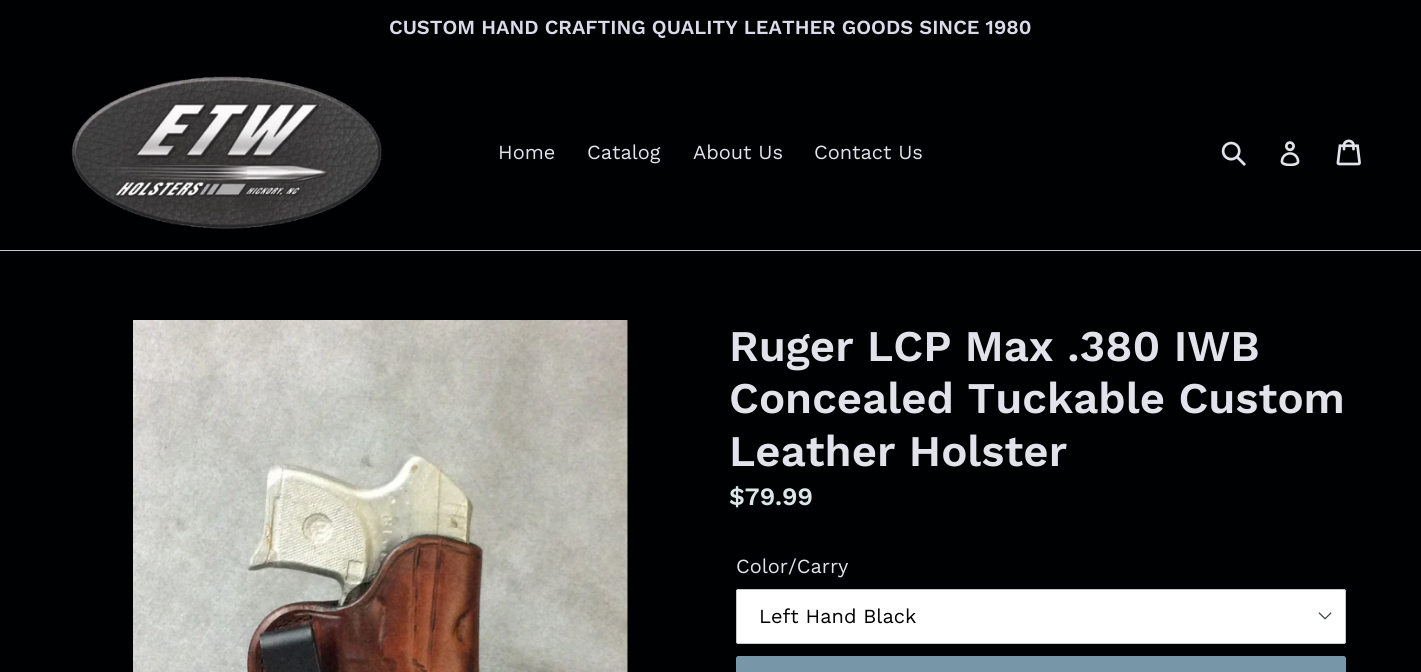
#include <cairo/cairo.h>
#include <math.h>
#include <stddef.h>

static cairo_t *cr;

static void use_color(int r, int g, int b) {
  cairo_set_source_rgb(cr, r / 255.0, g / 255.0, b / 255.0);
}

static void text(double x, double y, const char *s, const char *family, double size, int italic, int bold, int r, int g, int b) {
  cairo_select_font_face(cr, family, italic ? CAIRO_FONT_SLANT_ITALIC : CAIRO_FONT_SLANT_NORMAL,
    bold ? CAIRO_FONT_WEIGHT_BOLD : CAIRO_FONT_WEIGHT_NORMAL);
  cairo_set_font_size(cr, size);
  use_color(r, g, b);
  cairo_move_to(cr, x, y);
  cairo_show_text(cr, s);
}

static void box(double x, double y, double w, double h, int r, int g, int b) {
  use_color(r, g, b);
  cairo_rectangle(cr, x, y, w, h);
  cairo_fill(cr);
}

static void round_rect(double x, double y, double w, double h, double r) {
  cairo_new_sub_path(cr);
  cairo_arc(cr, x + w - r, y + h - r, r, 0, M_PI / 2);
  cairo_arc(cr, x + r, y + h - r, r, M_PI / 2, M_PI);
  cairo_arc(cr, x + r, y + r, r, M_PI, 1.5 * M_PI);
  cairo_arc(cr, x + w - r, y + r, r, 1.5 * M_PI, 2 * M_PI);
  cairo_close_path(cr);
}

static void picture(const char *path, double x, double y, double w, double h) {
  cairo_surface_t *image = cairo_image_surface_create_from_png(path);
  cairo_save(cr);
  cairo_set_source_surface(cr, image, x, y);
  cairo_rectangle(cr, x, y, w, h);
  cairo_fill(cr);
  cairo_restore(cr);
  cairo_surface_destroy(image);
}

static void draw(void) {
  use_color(0, 1, 3);
  cairo_paint(cr);
  box(0, 250, 1421, 1, 200, 198, 206);
  picture("img_01.png", 71, 76, 311, 153);
  picture("img_02.png", 1221, 141, 25, 25);
  picture("img_03.png", 1280, 141, 20, 25);
  picture("img_04.png", 1336, 139, 25, 27);
  picture("img_05.png", 133, 320, 495, 352);
  use_color(255, 255, 255);
  round_rect(736, 589, 610, 55, 2.5);
  cairo_fill(cr);
  picture("img_06.png", 1318, 612, 14, 8);
  round_rect(736.5, 589.5, 609, 54, 2);
  use_color(200, 198, 206);
  cairo_set_line_width(cr, 1);
  cairo_stroke(cr);
  use_color(119, 150, 168);
  round_rect(736, 656, 610, 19, 2.5);
  cairo_fill(cr);
  text(389, 34, "CUSTOM HAND CRAFTING QUALITY LEATHER GOODS SINCE 1980", "Work Sans SemiBold", 20, 0, 0, 217, 220, 232);
  text(498, 159, "Home", "Work Sans", 20, 0, 0, 226, 226, 235);
  text(587, 159, "Catalog", "Work Sans", 20, 0, 0, 226, 226, 235);
  text(693, 159, "About Us", "Work Sans", 20, 0, 0, 226, 226, 235);
  text(814, 159, "Contact Us", "Work Sans", 20, 0, 0, 226, 226, 235);
  text(729, 361, "Ruger LCP Max .380 IWB", "Work Sans SemiBold", 43.75, 0, 0, 226, 226, 235);
  text(729, 413, "Concealed Tuckable Custom", "Work Sans SemiBold", 43.75, 0, 0, 226, 226, 235);
  text(729, 466, "Leather Holster", "Work Sans SemiBold", 43.75, 0, 0, 226, 226, 235);
  text(729, 505, "$79.99", "Work Sans SemiBold", 25, 0, 0, 220, 230, 232);
  text(736, 573, "Color/Carry", "Work Sans", 20, 0, 0, 226, 226, 235);
  text(759, 623, "Left Hand Black", "Work Sans", 20, 0, 0, 0, 0, 0);
}

int main(void) {
  cairo_surface_t *surface = cairo_image_surface_create(CAIRO_FORMAT_RGB24, 1421, 672);
  cr = cairo_create(surface);
  cairo_font_options_t *options = cairo_font_options_create();
  cairo_font_options_set_hint_metrics(options, CAIRO_HINT_METRICS_OFF);
  cairo_font_options_set_hint_style(options, CAIRO_HINT_STYLE_NONE);
  cairo_set_font_options(cr, options);
  cairo_set_miter_limit(cr, 4);
  draw();
  cairo_surface_write_to_png(surface, "out.png");
  cairo_font_options_destroy(options);
  cairo_destroy(cr);
  cairo_surface_destroy(surface);
  return 0;
}
